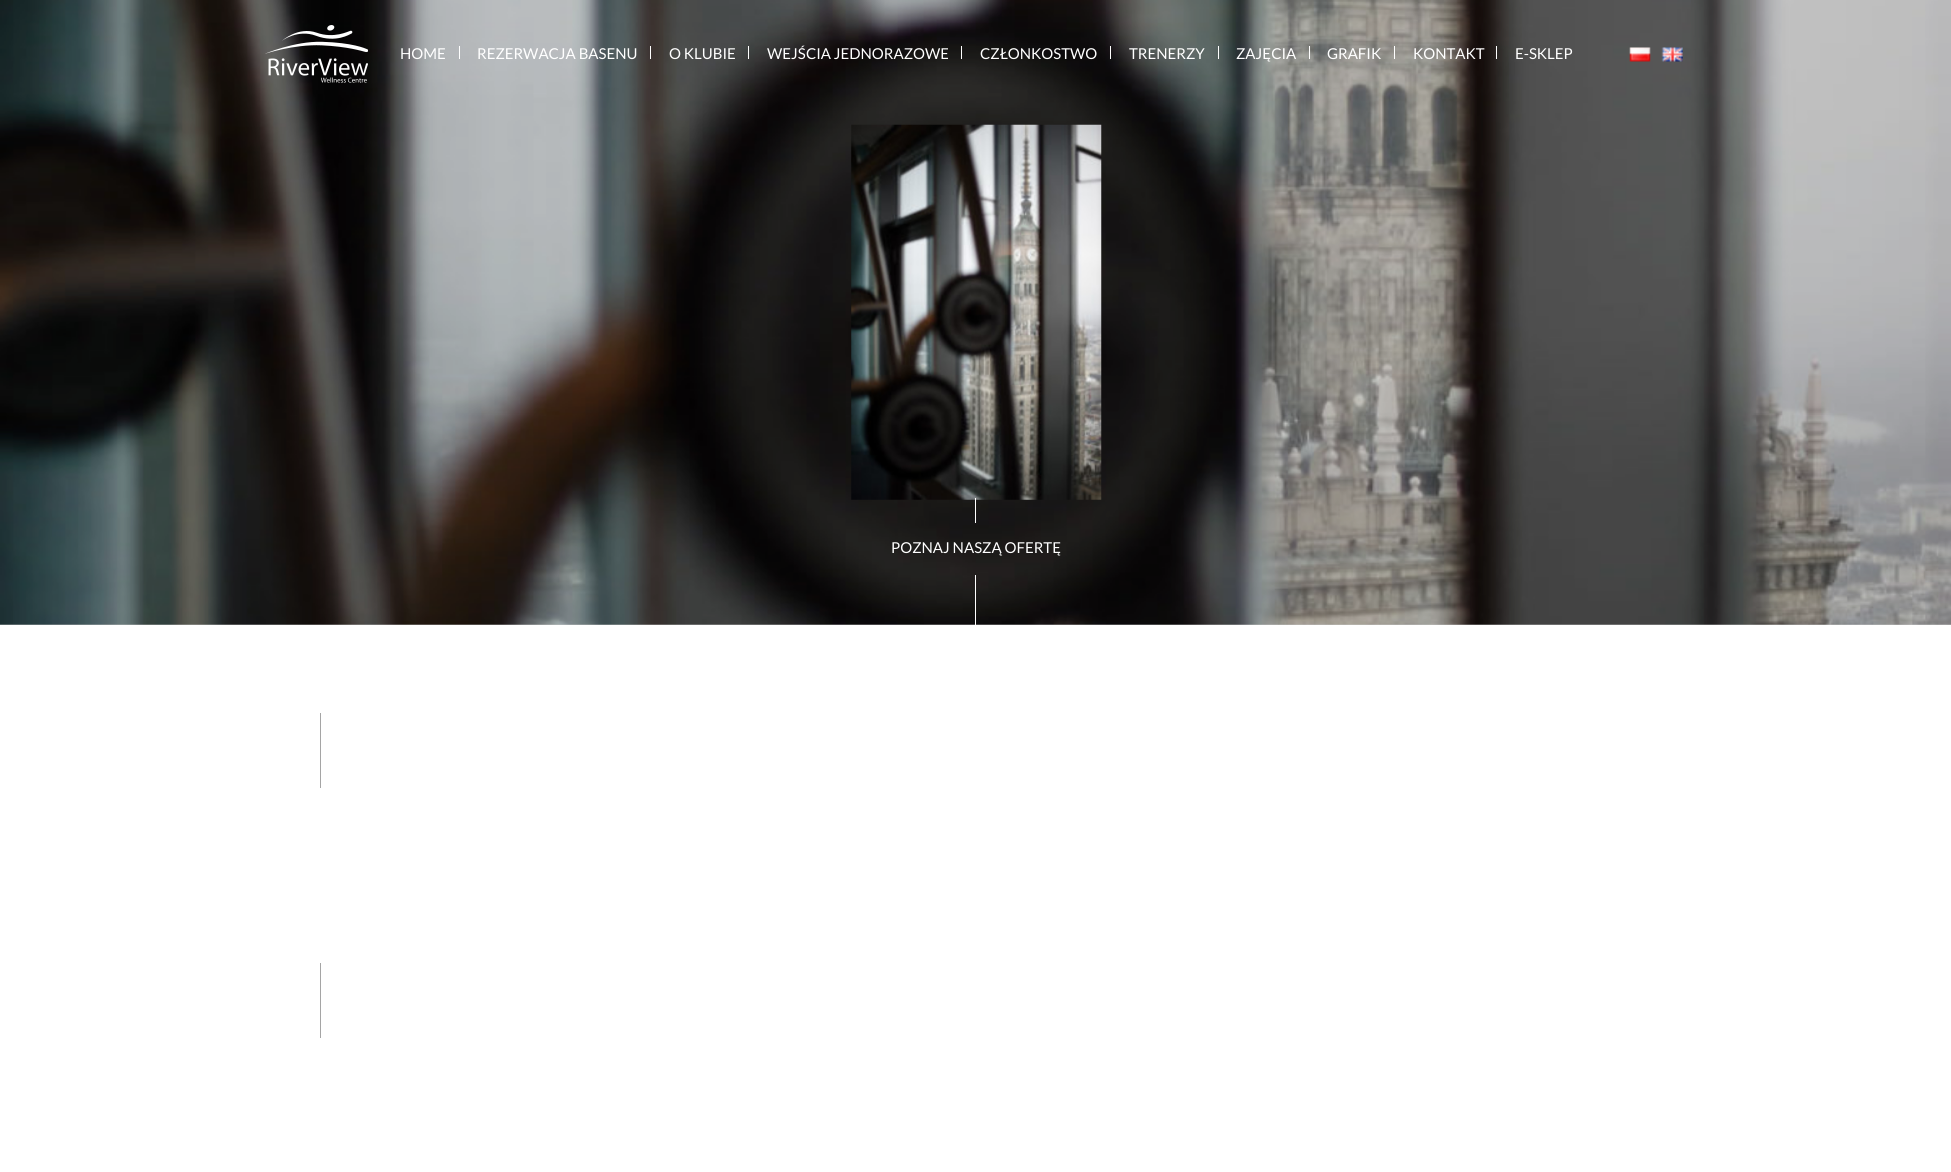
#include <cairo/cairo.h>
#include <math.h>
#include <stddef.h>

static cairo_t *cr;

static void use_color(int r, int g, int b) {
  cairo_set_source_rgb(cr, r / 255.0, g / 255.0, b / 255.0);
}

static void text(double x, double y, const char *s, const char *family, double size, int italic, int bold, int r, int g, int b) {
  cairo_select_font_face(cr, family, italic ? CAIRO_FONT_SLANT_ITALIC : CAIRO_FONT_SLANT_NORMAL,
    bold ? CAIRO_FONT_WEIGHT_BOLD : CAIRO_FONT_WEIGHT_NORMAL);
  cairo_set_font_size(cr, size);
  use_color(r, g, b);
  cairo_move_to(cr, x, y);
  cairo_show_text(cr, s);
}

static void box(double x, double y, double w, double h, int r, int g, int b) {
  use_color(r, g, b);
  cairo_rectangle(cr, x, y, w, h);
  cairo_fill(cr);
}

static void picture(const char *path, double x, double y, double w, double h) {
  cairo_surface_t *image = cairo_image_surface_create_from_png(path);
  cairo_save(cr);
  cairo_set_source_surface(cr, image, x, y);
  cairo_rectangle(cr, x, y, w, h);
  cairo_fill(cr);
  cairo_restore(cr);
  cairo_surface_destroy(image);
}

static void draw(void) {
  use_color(255, 255, 255);
  cairo_paint(cr);
  box(0, 624, 1951, 1, 204, 204, 204);
  picture("img_04.png", 0, 0, 1951, 625);
  picture("img_01.png", 265, 25, 103, 58);
  box(459, 46, 1, 13, 255, 255, 255);
  box(650, 46, 1, 13, 255, 255, 255);
  box(748, 46, 1, 13, 255, 255, 255);
  box(961, 46, 1, 13, 255, 255, 255);
  box(1110, 46, 1, 13, 255, 255, 255);
  box(1218, 46, 1, 13, 255, 255, 255);
  box(1309, 46, 1, 13, 255, 255, 255);
  box(1394, 46, 1, 13, 255, 255, 255);
  box(1496, 46, 1, 13, 255, 255, 255);
  picture("img_02.png", 1629, 47, 22, 15);
  picture("img_03.png", 1661, 47, 22, 15);
  picture("img_05.png", 851, 124, 251, 376);
  box(975, 498, 1, 25, 255, 255, 255);
  box(975, 575, 1, 50, 255, 255, 255);
  box(320, 713, 1, 75, 165, 165, 165);
  box(320, 963, 1, 75, 165, 165, 165);
  text(400, 59, "HOME", "Lato", 15, 0, 0, 255, 255, 255);
  text(477, 59, "REZERWACJA BASENU", "Lato", 15, 0, 0, 255, 255, 255);
  text(669, 59, "O KLUBIE", "Lato", 15, 0, 0, 255, 255, 255);
  text(767, 59, "WEJŚCIA JEDNORAZOWE", "Lato", 15, 0, 0, 255, 255, 255);
  text(980, 59, "CZŁONKOSTWO", "Lato", 15, 0, 0, 255, 255, 255);
  text(1129, 59, "TRENERZY", "Lato", 15, 0, 0, 255, 255, 255);
  text(1236, 59, "ZAJĘCIA", "Lato", 15, 0, 0, 255, 255, 255);
  text(1327, 59, "GRAFIK", "Lato", 15, 0, 0, 255, 255, 255);
  text(1413, 59, "KONTAKT", "Lato", 15, 0, 0, 255, 255, 255);
  text(1515, 59, "E-SKLEP", "Lato", 15, 0, 0, 255, 255, 255);
  text(891, 553, "POZNAJ NASZĄ OFERTĘ", "Lato", 15, 0, 0, 255, 255, 255);
}

int main(void) {
  cairo_surface_t *surface = cairo_image_surface_create(CAIRO_FORMAT_RGB24, 1951, 1172);
  cr = cairo_create(surface);
  cairo_font_options_t *options = cairo_font_options_create();
  cairo_font_options_set_hint_metrics(options, CAIRO_HINT_METRICS_OFF);
  cairo_font_options_set_hint_style(options, CAIRO_HINT_STYLE_NONE);
  cairo_set_font_options(cr, options);
  cairo_set_miter_limit(cr, 4);
  draw();
  cairo_surface_write_to_png(surface, "out.png");
  cairo_font_options_destroy(options);
  cairo_destroy(cr);
  cairo_surface_destroy(surface);
  return 0;
}
